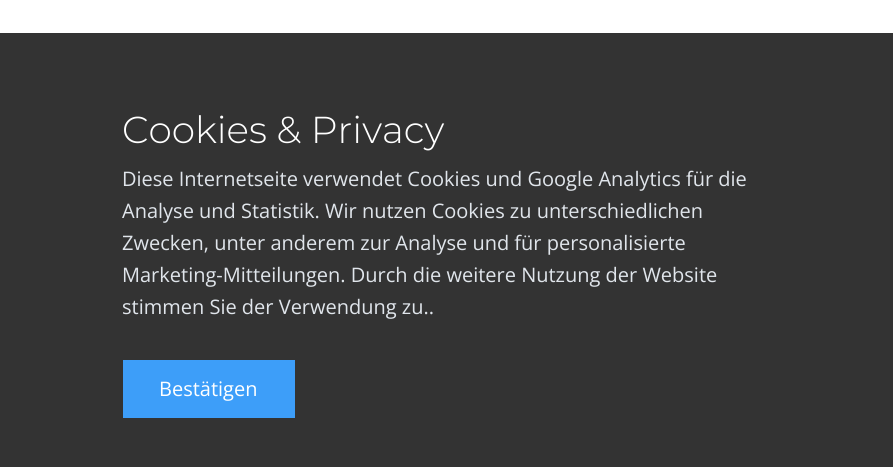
#include <cairo/cairo.h>
#include <math.h>
#include <stddef.h>

static cairo_t *cr;

static void use_color(int r, int g, int b) {
  cairo_set_source_rgb(cr, r / 255.0, g / 255.0, b / 255.0);
}

static void text(double x, double y, const char *s, const char *family, double size, int italic, int bold, int r, int g, int b) {
  cairo_select_font_face(cr, family, italic ? CAIRO_FONT_SLANT_ITALIC : CAIRO_FONT_SLANT_NORMAL,
    bold ? CAIRO_FONT_WEIGHT_BOLD : CAIRO_FONT_WEIGHT_NORMAL);
  cairo_set_font_size(cr, size);
  use_color(r, g, b);
  cairo_move_to(cr, x, y);
  cairo_show_text(cr, s);
}

static void box(double x, double y, double w, double h, int r, int g, int b) {
  use_color(r, g, b);
  cairo_rectangle(cr, x, y, w, h);
  cairo_fill(cr);
}

static void draw(void) {
  use_color(255, 255, 255);
  cairo_paint(cr);
  box(0, 33, 893, 434, 51, 51, 51);
  box(123, 360, 172, 58, 61, 158, 249);
  text(122, 143, "Cookies & Privacy", "Montserrat Light", 37.5, 0, 0, 255, 255, 255);
  text(122, 186, "Diese Internetseite verwendet Cookies und Google Analytics für die", "Open Sans", 20, 0, 0, 224, 229, 235);
  text(122, 218, "Analyse und Statistik. Wir nutzen Cookies zu unterschiedlichen", "Open Sans", 20, 0, 0, 224, 229, 235);
  text(122, 250, "Zwecken, unter anderem zur Analyse und für personalisierte", "Open Sans", 20, 0, 0, 224, 229, 235);
  text(122, 282, "Marketing-Mitteilungen. Durch die weitere Nutzung der Website", "Open Sans", 20, 0, 0, 224, 229, 235);
  text(122, 314, "stimmen Sie der Verwendung zu..", "Open Sans", 20, 0, 0, 224, 229, 235);
  text(159, 396, "Bestätigen", "Open Sans", 20, 0, 0, 255, 255, 255);
}

int main(void) {
  cairo_surface_t *surface = cairo_image_surface_create(CAIRO_FORMAT_RGB24, 893, 467);
  cr = cairo_create(surface);
  cairo_font_options_t *options = cairo_font_options_create();
  cairo_font_options_set_hint_metrics(options, CAIRO_HINT_METRICS_OFF);
  cairo_font_options_set_hint_style(options, CAIRO_HINT_STYLE_NONE);
  cairo_set_font_options(cr, options);
  cairo_set_miter_limit(cr, 4);
  draw();
  cairo_surface_write_to_png(surface, "out.png");
  cairo_font_options_destroy(options);
  cairo_destroy(cr);
  cairo_surface_destroy(surface);
  return 0;
}
